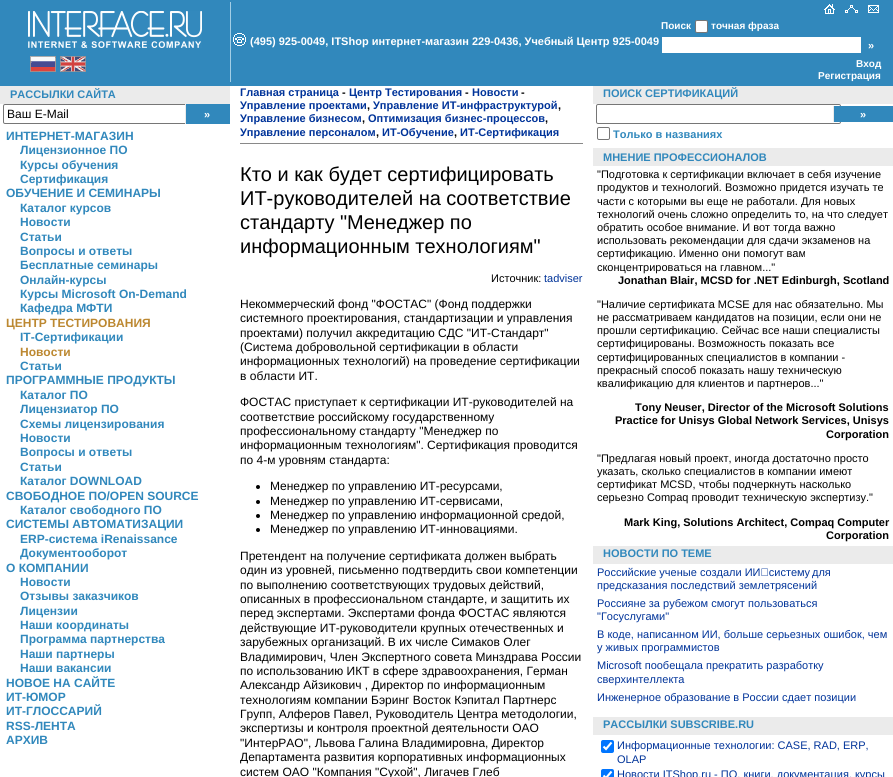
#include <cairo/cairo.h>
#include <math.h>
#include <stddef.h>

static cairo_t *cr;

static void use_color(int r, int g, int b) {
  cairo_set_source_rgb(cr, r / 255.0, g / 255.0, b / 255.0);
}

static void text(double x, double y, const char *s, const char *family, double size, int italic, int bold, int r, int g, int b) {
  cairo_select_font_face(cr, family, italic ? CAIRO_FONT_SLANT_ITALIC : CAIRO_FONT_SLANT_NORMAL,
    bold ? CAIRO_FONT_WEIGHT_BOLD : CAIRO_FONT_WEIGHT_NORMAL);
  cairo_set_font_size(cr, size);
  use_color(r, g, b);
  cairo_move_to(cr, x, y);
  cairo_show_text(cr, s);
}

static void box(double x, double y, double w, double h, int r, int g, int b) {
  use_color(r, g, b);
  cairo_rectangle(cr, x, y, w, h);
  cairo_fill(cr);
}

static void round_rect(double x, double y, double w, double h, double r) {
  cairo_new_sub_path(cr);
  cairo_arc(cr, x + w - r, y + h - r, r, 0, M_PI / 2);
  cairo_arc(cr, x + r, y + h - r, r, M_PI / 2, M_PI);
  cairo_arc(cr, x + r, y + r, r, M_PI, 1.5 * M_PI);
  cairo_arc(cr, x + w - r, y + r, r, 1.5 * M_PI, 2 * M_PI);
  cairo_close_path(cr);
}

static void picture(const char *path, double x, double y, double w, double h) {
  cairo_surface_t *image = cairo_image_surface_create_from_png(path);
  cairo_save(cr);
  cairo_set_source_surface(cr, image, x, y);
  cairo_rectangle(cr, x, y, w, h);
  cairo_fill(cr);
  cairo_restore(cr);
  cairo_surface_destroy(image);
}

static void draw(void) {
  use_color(255, 255, 255);
  cairo_paint(cr);
  box(0, 0, 893, 86, 49, 136, 188);
  picture("img_01.png", 28, 11, 174, 37);
  picture("img_02.png", 30, 56, 26, 16);
  picture("img_03.png", 60, 56, 26, 16);
  box(230, 2, 1, 80, 162, 206, 230);
  picture("img_04.png", 233, 33, 13, 13);
  picture("img_05.png", 824, 4, 11, 10);
  picture("img_06.png", 845, 5, 13, 8);
  picture("img_07.png", 868, 5, 11, 8);
  use_color(255, 255, 255);
  round_rect(695.5, 20.5, 12, 12, 1.5);
  cairo_fill_preserve(cr);
  use_color(118, 118, 118);
  cairo_set_line_width(cr, 1);
  cairo_stroke(cr);
  box(662, 37, 199, 16, 255, 255, 255);
  box(0, 86, 230, 18, 235, 235, 235);
  round_rect(3.5, 104.5, 187, 19, 1.5);
  use_color(118, 118, 118);
  cairo_stroke(cr);
  box(186, 104, 44, 20, 49, 136, 188);
  box(185, 104, 1, 20, 235, 235, 235);
  box(240, 143, 343, 1, 137, 137, 137);
  use_color(0, 0, 0);
  cairo_arc(cr, 258, 487, 2, 0, 2 * M_PI);
  cairo_fill(cr);
  cairo_arc(cr, 258, 502, 2, 0, 2 * M_PI);
  cairo_fill(cr);
  cairo_arc(cr, 258, 516, 2, 0, 2 * M_PI);
  cairo_fill(cr);
  cairo_arc(cr, 258, 530, 2, 0, 2 * M_PI);
  cairo_fill(cr);
  box(593, 86, 300, 18, 235, 235, 235);
  round_rect(596.5, 104.5, 244, 19, 1.5);
  use_color(118, 118, 118);
  cairo_stroke(cr);
  box(834, 106, 59, 16, 49, 136, 188);
  box(833, 106, 1, 16, 235, 235, 235);
  round_rect(597.5, 127.5, 12, 12, 1.5);
  use_color(118, 118, 118);
  cairo_stroke(cr);
  box(593, 148, 300, 18, 235, 235, 235);
  box(593, 546, 300, 18, 235, 235, 235);
  box(593, 717, 300, 18, 235, 235, 235);
  use_color(0, 117, 255);
  round_rect(601, 740, 13, 13, 2);
  cairo_fill(cr);
  cairo_new_path(cr);
  cairo_move_to(cr, 603.5, 746.5);
  cairo_line_to(cr, 606, 749);
  cairo_line_to(cr, 611.5, 742.5);
  use_color(255, 255, 255);
  cairo_set_line_width(cr, 2.1);
  cairo_stroke(cr);
  use_color(0, 117, 255);
  round_rect(601, 769, 13, 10, 2);
  cairo_fill(cr);
  cairo_new_path(cr);
  cairo_move_to(cr, 603.5, 775.5);
  cairo_line_to(cr, 606, 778);
  cairo_line_to(cr, 611.5, 771.5);
  use_color(255, 255, 255);
  cairo_stroke(cr);
  text(250, 45, "(495) 925-0049, ITShop интернет-магазин 229-0436, Учебный Центр 925-0049", "Liberation Sans", 11, 0, 1, 255, 255, 255);
  text(661, 29, "Поиск", "Liberation Sans", 10, 0, 1, 255, 255, 255);
  text(711, 29, "точная фраза", "Liberation Sans", 10, 0, 1, 255, 255, 255);
  text(868, 49, "»", "Liberation Sans", 11, 0, 1, 255, 255, 255);
  text(856, 67, "Вход", "Liberation Sans", 10, 0, 1, 255, 255, 255);
  text(818, 79, "Регистрация", "Liberation Sans", 10, 0, 1, 255, 255, 255);
  text(10, 98, "РАССЫЛКИ САЙТА", "Liberation Sans", 11, 0, 1, 49, 136, 188);
  text(7, 118, "Ваш E-Mail", "Liberation Sans", 12, 0, 0, 0, 0, 0);
  text(204, 118, "»", "Liberation Sans", 11, 0, 1, 255, 255, 255);
  text(6, 140, "ИНТЕРНЕТ-МАГАЗИН", "Liberation Sans", 12, 0, 1, 49, 136, 188);
  text(20, 154, "Лицензионное ПО", "Liberation Sans", 12, 0, 1, 49, 136, 188);
  text(20, 169, "Курсы обучения", "Liberation Sans", 12, 0, 1, 49, 136, 188);
  text(20, 183, "Сертификация", "Liberation Sans", 12, 0, 1, 49, 136, 188);
  text(6, 197, "ОБУЧЕНИЕ И СЕМИНАРЫ", "Liberation Sans", 12, 0, 1, 49, 136, 188);
  text(20, 212, "Каталог курсов", "Liberation Sans", 12, 0, 1, 49, 136, 188);
  text(20, 226, "Новости", "Liberation Sans", 12, 0, 1, 49, 136, 188);
  text(20, 241, "Статьи", "Liberation Sans", 12, 0, 1, 49, 136, 188);
  text(20, 255, "Вопросы и ответы", "Liberation Sans", 12, 0, 1, 49, 136, 188);
  text(20, 269, "Бесплатные семинары", "Liberation Sans", 12, 0, 1, 49, 136, 188);
  text(20, 284, "Онлайн-курсы", "Liberation Sans", 12, 0, 1, 49, 136, 188);
  text(20, 298, "Курсы Microsoft On-Demand", "Liberation Sans", 12, 0, 1, 49, 136, 188);
  text(20, 312, "Кафедра МФТИ", "Liberation Sans", 12, 0, 1, 49, 136, 188);
  text(6, 327, "ЦЕНТР ТЕСТИРОВАНИЯ", "Liberation Sans", 12, 0, 1, 188, 136, 49);
  text(20, 341, "IT-Сертификации", "Liberation Sans", 12, 0, 1, 49, 136, 188);
  text(20, 356, "Новости", "Liberation Sans", 12, 0, 1, 188, 136, 49);
  text(20, 370, "Статьи", "Liberation Sans", 12, 0, 1, 49, 136, 188);
  text(6, 384, "ПРОГРАММНЫЕ ПРОДУКТЫ", "Liberation Sans", 12, 0, 1, 49, 136, 188);
  text(20, 399, "Каталог ПО", "Liberation Sans", 12, 0, 1, 49, 136, 188);
  text(20, 413, "Лицензиатор ПО", "Liberation Sans", 12, 0, 1, 49, 136, 188);
  text(20, 428, "Схемы лицензирования", "Liberation Sans", 12, 0, 1, 49, 136, 188);
  text(20, 442, "Новости", "Liberation Sans", 12, 0, 1, 49, 136, 188);
  text(20, 456, "Вопросы и ответы", "Liberation Sans", 12, 0, 1, 49, 136, 188);
  text(20, 471, "Статьи", "Liberation Sans", 12, 0, 1, 49, 136, 188);
  text(20, 485, "Каталог DOWNLOAD", "Liberation Sans", 12, 0, 1, 49, 136, 188);
  text(6, 500, "СВОБОДНОЕ ПО/OPEN SOURCE", "Liberation Sans", 12, 0, 1, 49, 136, 188);
  text(20, 514, "Каталог свободного ПО", "Liberation Sans", 12, 0, 1, 49, 136, 188);
  text(6, 528, "СИСТЕМЫ АВТОМАТИЗАЦИИ", "Liberation Sans", 12, 0, 1, 49, 136, 188);
  text(20, 543, "ERP-система iRenaissance", "Liberation Sans", 12, 0, 1, 49, 136, 188);
  text(20, 557, "Документооборот", "Liberation Sans", 12, 0, 1, 49, 136, 188);
  text(6, 572, "О КОМПАНИИ", "Liberation Sans", 12, 0, 1, 49, 136, 188);
  text(20, 586, "Новости", "Liberation Sans", 12, 0, 1, 49, 136, 188);
  text(20, 600, "Отзывы заказчиков", "Liberation Sans", 12, 0, 1, 49, 136, 188);
  text(20, 615, "Лицензии", "Liberation Sans", 12, 0, 1, 49, 136, 188);
  text(20, 629, "Наши координаты", "Liberation Sans", 12, 0, 1, 49, 136, 188);
  text(20, 643, "Программа партнерства", "Liberation Sans", 12, 0, 1, 49, 136, 188);
  text(20, 658, "Наши партнеры", "Liberation Sans", 12, 0, 1, 49, 136, 188);
  text(20, 672, "Наши вакансии", "Liberation Sans", 12, 0, 1, 49, 136, 188);
  text(6, 687, "НОВОЕ НА САЙТЕ", "Liberation Sans", 12, 0, 1, 49, 136, 188);
  text(6, 701, "ИТ-ЮМОР", "Liberation Sans", 12, 0, 1, 49, 136, 188);
  text(6, 715, "ИТ-ГЛОССАРИЙ", "Liberation Sans", 12, 0, 1, 49, 136, 188);
  text(6, 730, "RSS-ЛЕНТА", "Liberation Sans", 12, 0, 1, 49, 136, 188);
  text(6, 744, "АРХИВ", "Liberation Sans", 12, 0, 1, 49, 136, 188);
  text(240, 96, "Главная страница", "Liberation Sans", 11, 0, 1, 0, 51, 153);
  text(342, 96, "-", "Liberation Sans", 11, 0, 1, 0, 0, 0);
  text(349, 96, "Центр Тестирования", "Liberation Sans", 11, 0, 1, 0, 51, 153);
  text(465, 96, "-", "Liberation Sans", 11, 0, 1, 0, 0, 0);
  text(472, 96, "Новости", "Liberation Sans", 11, 0, 1, 0, 51, 153);
  text(521, 96, "-", "Liberation Sans", 11, 0, 1, 0, 0, 0);
  text(240, 109, "Управление проектами", "Liberation Sans", 11, 0, 1, 0, 51, 153);
  text(367, 109, ",", "Liberation Sans", 11, 0, 1, 0, 0, 0);
  text(373, 109, "Управление ИТ-инфраструктурой", "Liberation Sans", 11, 0, 1, 0, 51, 153);
  text(558, 109, ",", "Liberation Sans", 11, 0, 1, 0, 0, 0);
  text(240, 122, "Управление бизнесом", "Liberation Sans", 11, 0, 1, 0, 51, 153);
  text(362, 122, ",", "Liberation Sans", 11, 0, 1, 0, 0, 0);
  text(368, 122, "Оптимизация бизнес-процессов", "Liberation Sans", 11, 0, 1, 0, 51, 153);
  text(545, 122, ",", "Liberation Sans", 11, 0, 1, 0, 0, 0);
  text(240, 136, "Управление персоналом", "Liberation Sans", 11, 0, 1, 0, 51, 153);
  text(376, 136, ",", "Liberation Sans", 11, 0, 1, 0, 0, 0);
  text(382, 136, "ИТ-Обучение", "Liberation Sans", 11, 0, 1, 0, 51, 153);
  text(454, 136, ",", "Liberation Sans", 11, 0, 1, 0, 0, 0);
  text(460, 136, "ИТ-Сертификация", "Liberation Sans", 11, 0, 1, 0, 51, 153);
  text(240, 181, "Кто и как будет сертифицировать", "Liberation Sans", 20, 0, 0, 0, 0, 0);
  text(240, 205, "ИТ-руководителей на соответствие", "Liberation Sans", 20, 0, 0, 0, 0, 0);
  text(240, 229, "стандарту \"Менеджер по", "Liberation Sans", 20, 0, 0, 0, 0, 0);
  text(240, 253, "информационным технологиям\"", "Liberation Sans", 20, 0, 0, 0, 0, 0);
  text(491, 282, "Источник:", "Liberation Sans", 11, 0, 0, 0, 0, 0);
  text(544, 282, "tadviser", "Liberation Sans", 11, 0, 0, 0, 51, 153);
  text(240, 308, "Некоммерческий фонд \"ФОСТАС\" (Фонд поддержки", "Liberation Sans", 12, 0, 0, 0, 0, 0);
  text(240, 322, "системного проектирования, стандартизации и управления", "Liberation Sans", 12, 0, 0, 0, 0, 0);
  text(240, 337, "проектами) получил аккредитацию СДС \"ИТ-Стандарт\"", "Liberation Sans", 12, 0, 0, 0, 0, 0);
  text(240, 351, "(Система добровольной сертификации в области", "Liberation Sans", 12, 0, 0, 0, 0, 0);
  text(240, 365, "информационных технологий) на проведение сертификации", "Liberation Sans", 12, 0, 0, 0, 0, 0);
  text(240, 380, "в области ИТ.", "Liberation Sans", 12, 0, 0, 0, 0, 0);
  text(240, 406, "ФОСТАС приступает к сертификации ИТ-руководителей на", "Liberation Sans", 12, 0, 0, 0, 0, 0);
  text(240, 421, "соответствие российскому государственному", "Liberation Sans", 12, 0, 0, 0, 0, 0);
  text(240, 435, "профессиональному стандарту \"Менеджер по", "Liberation Sans", 12, 0, 0, 0, 0, 0);
  text(240, 449, "информационным технологиям\". Сертификация проводится", "Liberation Sans", 12, 0, 0, 0, 0, 0);
  text(240, 464, "по 4-м уровням стандарта:", "Liberation Sans", 12, 0, 0, 0, 0, 0);
  text(270, 490, "Менеджер по управлению ИТ-ресурсами,", "Liberation Sans", 12, 0, 0, 0, 0, 0);
  text(270, 505, "Менеджер по управлению ИТ-сервисами,", "Liberation Sans", 12, 0, 0, 0, 0, 0);
  text(270, 519, "Менеджер по управлению информационной средой,", "Liberation Sans", 12, 0, 0, 0, 0, 0);
  text(270, 533, "Менеджер по управлению ИТ-инновациями.", "Liberation Sans", 12, 0, 0, 0, 0, 0);
  text(240, 560, "Претендент на получение сертификата должен выбрать", "Liberation Sans", 12, 0, 0, 0, 0, 0);
  text(240, 574, "один из уровней, письменно подтвердить свои компетенции", "Liberation Sans", 12, 0, 0, 0, 0, 0);
  text(240, 589, "по выполнению соответствующих трудовых действий,", "Liberation Sans", 12, 0, 0, 0, 0, 0);
  text(240, 603, "описанных в профессиональном стандарте, и защитить их", "Liberation Sans", 12, 0, 0, 0, 0, 0);
  text(240, 617, "перед экспертами. Экспертами фонда ФОСТАС являются", "Liberation Sans", 12, 0, 0, 0, 0, 0);
  text(240, 632, "действующие ИТ-руководители крупных отечественных и", "Liberation Sans", 12, 0, 0, 0, 0, 0);
  text(240, 646, "зарубежных организаций. В их числе Симаков Олег", "Liberation Sans", 12, 0, 0, 0, 0, 0);
  text(240, 661, "Владимирович, Член Экспертного совета Минздрава России", "Liberation Sans", 12, 0, 0, 0, 0, 0);
  text(240, 675, "по использованию ИКТ в сфере здравоохранения, Герман", "Liberation Sans", 12, 0, 0, 0, 0, 0);
  text(240, 689, "Александр Айзикович , Директор по информационным", "Liberation Sans", 12, 0, 0, 0, 0, 0);
  text(240, 704, "технологиям компании Бэринг Восток Кэпитал Партнерс", "Liberation Sans", 12, 0, 0, 0, 0, 0);
  text(240, 718, "Групп, Алферов Павел, Руководитель Центра методологии,", "Liberation Sans", 12, 0, 0, 0, 0, 0);
  text(240, 732, "экспертизы и контроля проектной деятельности ОАО", "Liberation Sans", 12, 0, 0, 0, 0, 0);
  text(240, 747, "\"ИнтерРАО\", Львова Галина Владимировна, Директор", "Liberation Sans", 12, 0, 0, 0, 0, 0);
  text(240, 761, "Департамента развития корпоративных информационных", "Liberation Sans", 12, 0, 0, 0, 0, 0);
  text(240, 776, "систем ОАО \"Компания \"Сухой\", Лигачев Глеб", "Liberation Sans", 12, 0, 0, 0, 0, 0);
  text(603, 97, "ПОИСК СЕРТИФИКАЦИЙ", "Liberation Sans", 11, 0, 1, 49, 136, 188);
  text(860, 118, "»", "Liberation Sans", 11, 0, 1, 255, 255, 255);
  text(613, 138, "Только в названиях", "Liberation Sans", 11, 0, 1, 49, 136, 188);
  text(603, 161, "МНЕНИЕ ПРОФЕССИОНАЛОВ", "Liberation Sans", 11, 0, 1, 49, 136, 188);
  text(597, 178, "\"Подготовка к сертификации включает в себя изучение", "Liberation Sans", 11, 0, 0, 0, 0, 0);
  text(597, 191, "продуктов и технологий. Возможно придется изучать те", "Liberation Sans", 11, 0, 0, 0, 0, 0);
  text(597, 205, "части с которыми вы еще не работали. Для новых", "Liberation Sans", 11, 0, 0, 0, 0, 0);
  text(597, 218, "технологий очень сложно определить то, на что следует", "Liberation Sans", 11, 0, 0, 0, 0, 0);
  text(597, 231, "обратить особое внимание. И вот тогда важно", "Liberation Sans", 11, 0, 0, 0, 0, 0);
  text(597, 244, "использовать рекомендации для сдачи экзаменов на", "Liberation Sans", 11, 0, 0, 0, 0, 0);
  text(597, 257, "сертификацию. Именно они помогут вам", "Liberation Sans", 11, 0, 0, 0, 0, 0);
  text(597, 271, "сконцентрироваться на главном...\"", "Liberation Sans", 11, 0, 0, 0, 0, 0);
  text(618, 284, "Jonathan Blair, MCSD for .NET Edinburgh, Scotland", "Liberation Sans", 11, 0, 1, 0, 0, 0);
  text(597, 308, "\"Наличие сертификата MCSE для нас обязательно. Мы", "Liberation Sans", 11, 0, 0, 0, 0, 0);
  text(597, 321, "не рассматриваем кандидатов на позиции, если они не", "Liberation Sans", 11, 0, 0, 0, 0, 0);
  text(597, 334, "прошли сертификацию. Сейчас все наши специалисты", "Liberation Sans", 11, 0, 0, 0, 0, 0);
  text(597, 347, "сертифицированы. Возможность показать все", "Liberation Sans", 11, 0, 0, 0, 0, 0);
  text(597, 361, "сертифицированных специалистов в компании -", "Liberation Sans", 11, 0, 0, 0, 0, 0);
  text(597, 374, "прекрасный способ показать нашу техническую", "Liberation Sans", 11, 0, 0, 0, 0, 0);
  text(597, 387, "квалификацию для клиентов и партнеров...\"", "Liberation Sans", 11, 0, 0, 0, 0, 0);
  text(635, 411, "Tony Neuser, Director of the Microsoft Solutions", "Liberation Sans", 11, 0, 1, 0, 0, 0);
  text(615, 424, "Practice for Unisys Global Network Services, Unisys", "Liberation Sans", 11, 0, 1, 0, 0, 0);
  text(826, 438, "Corporation", "Liberation Sans", 11, 0, 1, 0, 0, 0);
  text(597, 462, "\"Предлагая новый проект, иногда достаточно просто", "Liberation Sans", 11, 0, 0, 0, 0, 0);
  text(597, 475, "указать, сколько специалистов в компании имеют", "Liberation Sans", 11, 0, 0, 0, 0, 0);
  text(597, 488, "сертификат MCSD, чтобы подчеркнуть насколько", "Liberation Sans", 11, 0, 0, 0, 0, 0);
  text(597, 501, "серьезно Compaq проводит техническую экспертизу.\"", "Liberation Sans", 11, 0, 0, 0, 0, 0);
  text(624, 526, "Mark King, Solutions Architect, Compaq Computer", "Liberation Sans", 11, 0, 1, 0, 0, 0);
  text(826, 539, "Corporation", "Liberation Sans", 11, 0, 1, 0, 0, 0);
  text(603, 557, "НОВОСТИ ПО ТЕМЕ", "Liberation Sans", 11, 0, 1, 49, 136, 188);
  text(597, 576, "Российские ученые создали ИИ‑систему", "Liberation Sans", 11, 0, 0, 0, 51, 153);
  text(812, 576, "для", "Liberation Sans", 11, 0, 0, 0, 51, 153);
  text(597, 589, "предсказания последствий землетрясений", "Liberation Sans", 11, 0, 0, 0, 51, 153);
  text(597, 607, "Россияне за рубежом смогут пользоваться", "Liberation Sans", 11, 0, 0, 0, 51, 153);
  text(597, 620, "\"Госуслугами\"", "Liberation Sans", 11, 0, 0, 0, 51, 153);
  text(597, 638, "В коде, написанном ИИ, больше серьезных ошибок, чем", "Liberation Sans", 11, 0, 0, 0, 51, 153);
  text(597, 651, "у живых программистов", "Liberation Sans", 11, 0, 0, 0, 51, 153);
  text(597, 669, "Microsoft пообещала прекратить разработку", "Liberation Sans", 11, 0, 0, 0, 51, 153);
  text(597, 683, "сверхинтеллекта", "Liberation Sans", 11, 0, 0, 0, 51, 153);
  text(597, 701, "Инженерное образование в России сдает позиции", "Liberation Sans", 11, 0, 0, 0, 51, 153);
  text(603, 728, "РАССЫЛКИ SUBSCRIBE.RU", "Liberation Sans", 11, 0, 1, 49, 136, 188);
  text(617, 749, "Информационные технологии: CASE, RAD, ERP,", "Liberation Sans", 11, 0, 0, 0, 51, 153);
  text(617, 763, "OLAP", "Liberation Sans", 11, 0, 0, 0, 51, 153);
  text(617, 778, "Новости ITShop.ru - ПО, книги, документация, курсы", "Liberation Sans", 11, 0, 0, 0, 51, 153);
}

int main(void) {
  cairo_surface_t *surface = cairo_image_surface_create(CAIRO_FORMAT_RGB24, 893, 777);
  cr = cairo_create(surface);
  cairo_font_options_t *options = cairo_font_options_create();
  cairo_font_options_set_hint_metrics(options, CAIRO_HINT_METRICS_OFF);
  cairo_font_options_set_hint_style(options, CAIRO_HINT_STYLE_NONE);
  cairo_set_font_options(cr, options);
  cairo_set_miter_limit(cr, 4);
  draw();
  cairo_surface_write_to_png(surface, "out.png");
  cairo_font_options_destroy(options);
  cairo_destroy(cr);
  cairo_surface_destroy(surface);
  return 0;
}
